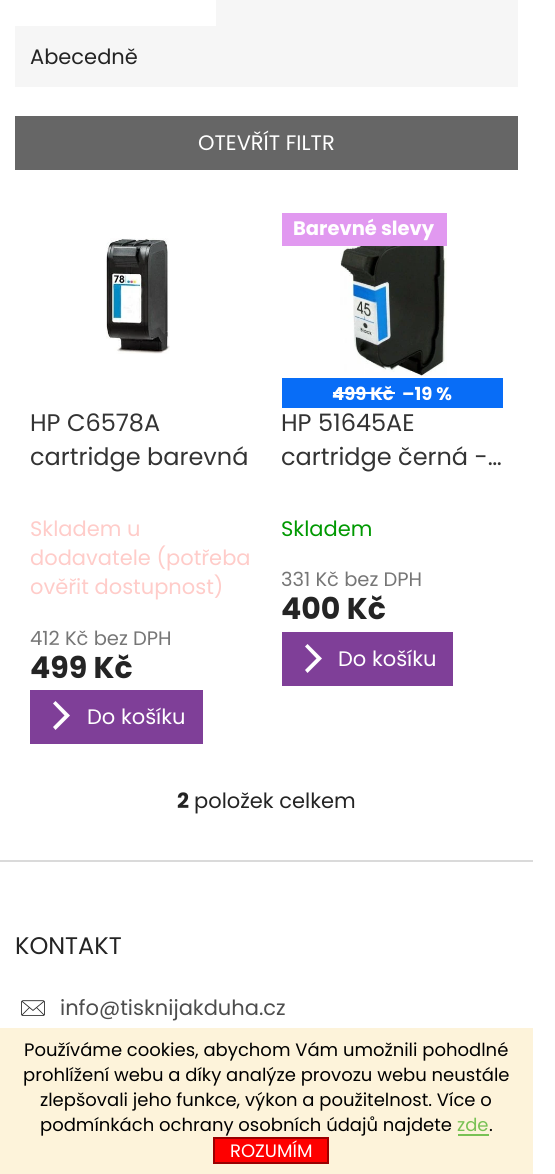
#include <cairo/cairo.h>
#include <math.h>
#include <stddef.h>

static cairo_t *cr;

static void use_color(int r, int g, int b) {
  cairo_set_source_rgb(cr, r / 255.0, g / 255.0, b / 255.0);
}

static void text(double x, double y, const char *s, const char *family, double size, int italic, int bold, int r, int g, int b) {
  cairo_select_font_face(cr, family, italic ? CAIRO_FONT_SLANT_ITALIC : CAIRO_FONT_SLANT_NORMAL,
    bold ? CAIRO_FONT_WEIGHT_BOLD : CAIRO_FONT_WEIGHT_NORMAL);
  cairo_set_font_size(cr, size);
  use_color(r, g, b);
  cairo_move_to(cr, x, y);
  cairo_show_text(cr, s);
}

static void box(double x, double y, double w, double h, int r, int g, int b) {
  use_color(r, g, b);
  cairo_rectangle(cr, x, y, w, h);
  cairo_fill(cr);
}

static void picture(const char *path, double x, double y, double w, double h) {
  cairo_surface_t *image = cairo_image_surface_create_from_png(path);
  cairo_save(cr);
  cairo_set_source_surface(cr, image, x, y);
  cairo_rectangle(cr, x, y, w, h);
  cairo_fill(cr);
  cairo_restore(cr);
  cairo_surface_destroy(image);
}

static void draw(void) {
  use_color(255, 255, 255);
  cairo_paint(cr);
  box(15, 0, 503, 87, 246, 246, 246);
  box(15, 0, 201, 26, 255, 255, 255);
  box(15, 116, 503, 54, 102, 102, 102);
  picture("img_01.png", 106, 238, 64, 116);
  box(30, 690, 173, 54, 127, 63, 152);
  use_color(255, 255, 255);
  cairo_new_path(cr);
  cairo_move_to(cr, 55.5, 730);
  cairo_line_to(cr, 53, 727);
  cairo_line_to(cr, 64.5, 715.5);
  cairo_line_to(cr, 53, 703.5);
  cairo_line_to(cr, 55.5, 701);
  cairo_line_to(cr, 70, 715.5);
  cairo_close_path(cr);
  cairo_fill(cr);
  box(282, 213, 165, 33, 225, 153, 240);
  picture("img_02.png", 340, 246, 107, 130);
  box(282, 378, 221, 30, 8, 109, 247);
  box(333, 392, 62, 2, 255, 255, 255);
  box(282, 632, 171, 54, 127, 63, 152);
  use_color(255, 255, 255);
  cairo_new_path(cr);
  cairo_move_to(cr, 307.5, 673);
  cairo_line_to(cr, 305, 670);
  cairo_line_to(cr, 316.5, 658.5);
  cairo_line_to(cr, 305, 646.5);
  cairo_line_to(cr, 307.5, 644);
  cairo_line_to(cr, 322, 658.5);
  cairo_close_path(cr);
  cairo_fill(cr);
  box(0, 860, 533, 2, 218, 218, 218);
  picture("img_03.png", 21, 1000, 24, 16);
  box(0, 1028, 533, 146, 253, 243, 218);
  box(458, 1134, 31, 2, 120, 193, 84);
  use_color(254, 0, 0);
  cairo_rectangle(cr, 214, 1138, 114, 25);
  cairo_fill_preserve(cr);
  use_color(154, 0, 0);
  cairo_stroke(cr);
  text(30, 64, "Abecedně", "Poppins", 21, 0, 0, 36, 36, 36);
  text(198, 150, "OTEVŘÍT FILTR", "Poppins", 21, 0, 0, 255, 255, 255);
  text(30, 431, "HP C6578A", "Poppins", 24, 0, 0, 51, 51, 51);
  text(30, 465, "cartridge barevná", "Poppins", 24, 0, 0, 51, 51, 51);
  text(30, 536, "Skladem u", "Poppins", 21, 0, 0, 255, 204, 201);
  text(30, 565, "dodavatele (potřeba", "Poppins", 21, 0, 0, 255, 204, 201);
  text(30, 594, "ověřit dostupnost)", "Poppins", 21, 0, 0, 255, 204, 201);
  text(30, 645, "412 Kč bez DPH", "Poppins", 19.5, 0, 0, 118, 118, 118);
  text(30, 678, "499 Kč", "Poppins", 30, 0, 1, 36, 36, 36);
  text(87, 724, "Do košíku", "Poppins", 21, 0, 0, 255, 255, 255);
  text(293, 235, "Barevné slevy", "Poppins", 19.5, 0, 1, 255, 255, 255);
  text(332, 400, "499 Kč", "Poppins", 18, 0, 1, 255, 255, 255);
  text(402, 400, "–19 %", "Poppins", 18, 0, 1, 255, 255, 255);
  text(281, 431, "HP 51645AE", "Poppins", 24, 0, 0, 51, 51, 51);
  text(281, 465, "cartridge černá -…", "Poppins", 24, 0, 0, 51, 51, 51);
  text(281, 536, "Skladem", "Poppins", 21, 0, 0, 0, 153, 1);
  text(281, 586, "331 Kč bez DPH", "Poppins", 19.5, 0, 0, 118, 118, 118);
  text(281, 619, "400 Kč", "Poppins", 30, 0, 1, 36, 36, 36);
  text(338, 666, "Do košíku", "Poppins", 21, 0, 0, 255, 255, 255);
  text(177, 808, "2", "Poppins", 21, 0, 1, 36, 36, 36);
  text(194, 808, "položek celkem", "Poppins", 21, 0, 0, 36, 36, 36);
  text(15, 954, "KONTAKT", "Poppins", 24, 0, 0, 36, 36, 36);
  text(60, 1015, "info@tisknijakduha.cz", "Poppins", 21, 0, 0, 77, 77, 77);
  text(24, 1056, "Používáme cookies, abychom Vám umožnili pohodlné", "Poppins", 18, 0, 0, 0, 0, 0);
  text(23, 1081, "prohlížení webu a díky analýze provozu webu neustále", "Poppins", 18, 0, 0, 0, 0, 0);
  text(40, 1106, "zlepšovali jeho funkce, výkon a použitelnost. Více o", "Poppins", 18, 0, 0, 0, 0, 0);
  text(40, 1131, "podmínkách ochrany osobních údajů najdete", "Poppins", 18, 0, 0, 0, 0, 0);
  text(457, 1131, "zde", "Poppins", 18, 0, 0, 120, 193, 84);
  text(489, 1131, ".", "Poppins", 18, 0, 0, 0, 0, 0);
  text(230, 1157, "ROZUMÍM", "Poppins", 18, 0, 0, 255, 255, 255);
}

int main(void) {
  cairo_surface_t *surface = cairo_image_surface_create(CAIRO_FORMAT_RGB24, 555, 1174);
  cr = cairo_create(surface);
  cairo_font_options_t *options = cairo_font_options_create();
  cairo_font_options_set_hint_metrics(options, CAIRO_HINT_METRICS_OFF);
  cairo_font_options_set_hint_style(options, CAIRO_HINT_STYLE_NONE);
  cairo_set_font_options(cr, options);
  cairo_set_miter_limit(cr, 4);
  draw();
  cairo_surface_write_to_png(surface, "out.png");
  cairo_font_options_destroy(options);
  cairo_destroy(cr);
  cairo_surface_destroy(surface);
  return 0;
}
